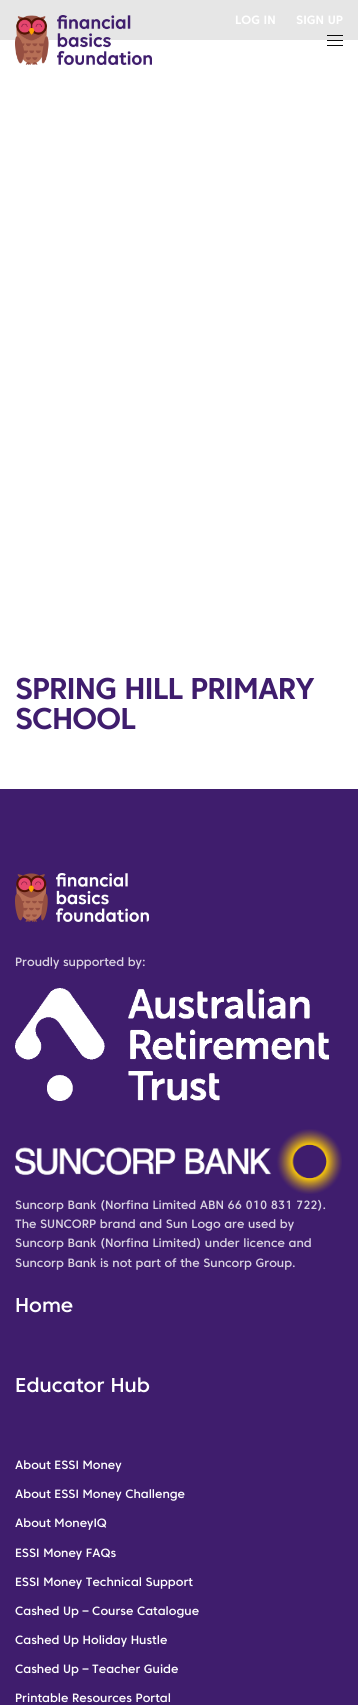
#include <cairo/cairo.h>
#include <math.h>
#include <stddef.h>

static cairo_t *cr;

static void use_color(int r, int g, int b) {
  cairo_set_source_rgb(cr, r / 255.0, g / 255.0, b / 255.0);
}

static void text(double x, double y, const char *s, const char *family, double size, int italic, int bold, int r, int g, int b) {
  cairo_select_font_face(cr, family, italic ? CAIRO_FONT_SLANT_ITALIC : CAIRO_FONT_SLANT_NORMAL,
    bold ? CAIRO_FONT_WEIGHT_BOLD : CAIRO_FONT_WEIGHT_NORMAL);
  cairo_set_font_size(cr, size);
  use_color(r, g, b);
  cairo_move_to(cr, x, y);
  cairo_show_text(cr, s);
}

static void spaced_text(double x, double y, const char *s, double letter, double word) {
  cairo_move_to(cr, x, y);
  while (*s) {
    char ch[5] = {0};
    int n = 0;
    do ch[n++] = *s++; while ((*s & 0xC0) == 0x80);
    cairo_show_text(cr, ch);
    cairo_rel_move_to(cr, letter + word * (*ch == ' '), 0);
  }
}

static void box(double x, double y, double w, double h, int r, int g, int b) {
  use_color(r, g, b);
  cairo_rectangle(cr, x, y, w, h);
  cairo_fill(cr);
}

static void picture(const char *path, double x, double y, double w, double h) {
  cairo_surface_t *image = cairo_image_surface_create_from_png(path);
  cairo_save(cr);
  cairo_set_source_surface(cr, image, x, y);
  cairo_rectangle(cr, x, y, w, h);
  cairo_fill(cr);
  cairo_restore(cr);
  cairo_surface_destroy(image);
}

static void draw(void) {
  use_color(255, 255, 255);
  cairo_paint(cr);
  box(0, 0, 358, 40, 230, 230, 230);
  picture("img_01.png", 15, 15, 137, 50);
  box(327, 35, 16, 1, 9, 9, 9);
  box(327, 40, 16, 1, 9, 9, 9);
  box(327, 45, 16, 1, 9, 9, 9);
  box(0, 789, 358, 916, 63, 29, 109);
  picture("img_02.png", 15, 873, 134, 49);
  picture("img_03.png", 15, 988, 314, 113);
  picture("img_04.png", 15, 1129, 327, 65);
  text(235, 24, "LOG IN", "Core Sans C", 12, 0, 1, 255, 255, 255);
  text(296, 24, "SIGN UP", "Core Sans C", 12, 0, 1, 255, 255, 255);
  cairo_set_font_size(cr, 30);
  use_color(63, 29, 109);
  spaced_text(15, 699, "SPRING HILL PRIMARY", -0.9, 0);
  spaced_text(15, 729, "SCHOOL", -0.9, 0);
  text(15, 966, "Proudly supported by:", "Core Sans C Medium", 12, 0, 0, 217, 210, 226);
  text(15, 1209, "Suncorp Bank (Norfina Limited ABN 66 010 831 722).", "Core Sans C Medium", 12, 0, 0, 217, 210, 226);
  text(15, 1228, "The SUNCORP brand and Sun Logo are used by", "Core Sans C Medium", 12, 0, 0, 217, 210, 226);
  text(15, 1247, "Suncorp Bank (Norfina Limited) under licence and", "Core Sans C Medium", 12, 0, 0, 217, 210, 226);
  text(15, 1267, "Suncorp Bank is not part of the Suncorp Group.", "Core Sans C Medium", 12, 0, 0, 217, 210, 226);
  text(15, 1312, "Home", "Core Sans C Medium", 20, 0, 0, 255, 255, 255);
  text(15, 1392, "Educator Hub", "Core Sans C Medium", 20, 0, 0, 255, 255, 255);
  text(15, 1469, "About ESSI Money", "Core Sans C Medium", 12, 0, 0, 255, 255, 255);
  text(15, 1498, "About ESSI Money Challenge", "Core Sans C Medium", 12, 0, 0, 255, 255, 255);
  text(15, 1527, "About MoneyIQ", "Core Sans C Medium", 12, 0, 0, 255, 255, 255);
  text(15, 1557, "ESSI Money FAQs", "Core Sans C Medium", 12, 0, 0, 255, 255, 255);
  text(15, 1586, "ESSI Money Technical Support", "Core Sans C Medium", 12, 0, 0, 255, 255, 255);
  text(15, 1615, "Cashed Up – Course Catalogue", "Core Sans C Medium", 12, 0, 0, 255, 255, 255);
  text(15, 1644, "Cashed Up Holiday Hustle", "Core Sans C Medium", 12, 0, 0, 255, 255, 255);
  text(15, 1673, "Cashed Up – Teacher Guide", "Core Sans C Medium", 12, 0, 0, 255, 255, 255);
  text(15, 1702, "Printable Resources Portal", "Core Sans C Medium", 12, 0, 0, 255, 255, 255);
}

int main(void) {
  cairo_surface_t *surface = cairo_image_surface_create(CAIRO_FORMAT_RGB24, 358, 1705);
  cr = cairo_create(surface);
  cairo_font_options_t *options = cairo_font_options_create();
  cairo_font_options_set_hint_metrics(options, CAIRO_HINT_METRICS_OFF);
  cairo_font_options_set_hint_style(options, CAIRO_HINT_STYLE_NONE);
  cairo_set_font_options(cr, options);
  cairo_set_miter_limit(cr, 4);
  draw();
  cairo_surface_write_to_png(surface, "out.png");
  cairo_font_options_destroy(options);
  cairo_destroy(cr);
  cairo_surface_destroy(surface);
  return 0;
}
